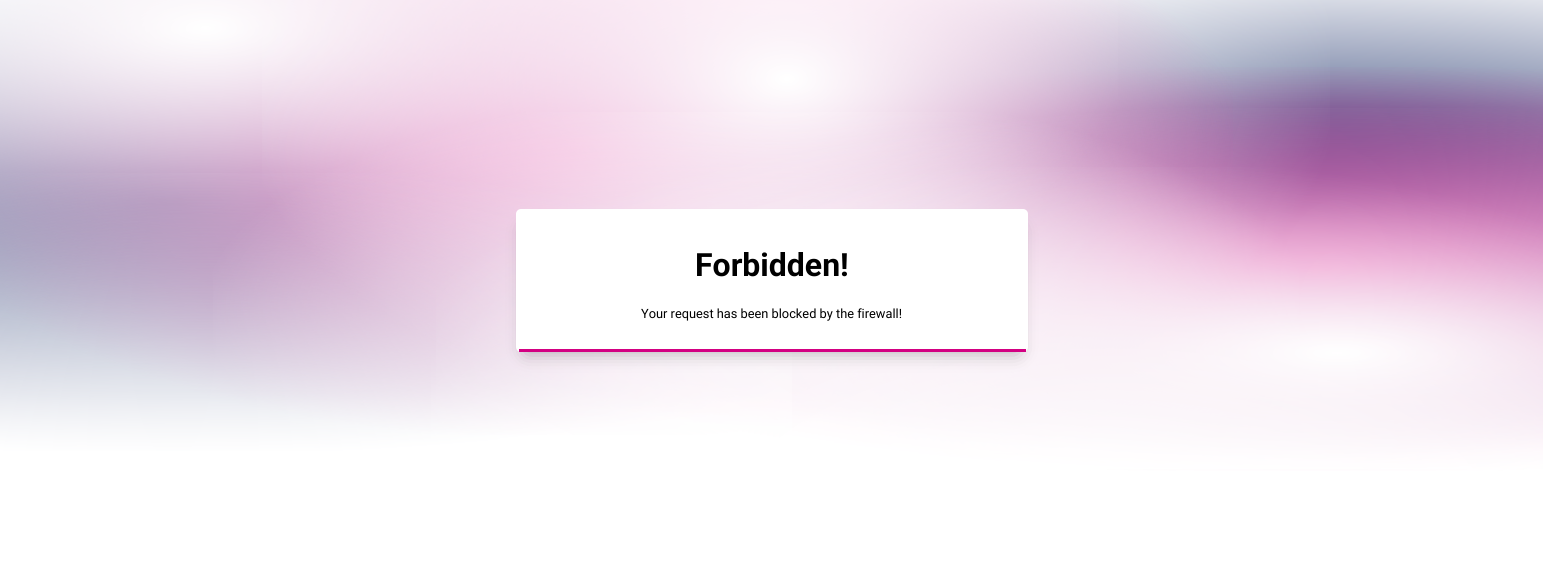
#include <cairo/cairo.h>
#include <math.h>
#include <stddef.h>

static cairo_t *cr;

static void use_color(int r, int g, int b) {
  cairo_set_source_rgb(cr, r / 255.0, g / 255.0, b / 255.0);
}

static void text(double x, double y, const char *s, const char *family, double size, int italic, int bold, int r, int g, int b) {
  cairo_select_font_face(cr, family, italic ? CAIRO_FONT_SLANT_ITALIC : CAIRO_FONT_SLANT_NORMAL,
    bold ? CAIRO_FONT_WEIGHT_BOLD : CAIRO_FONT_WEIGHT_NORMAL);
  cairo_set_font_size(cr, size);
  use_color(r, g, b);
  cairo_move_to(cr, x, y);
  cairo_show_text(cr, s);
}

static void box(double x, double y, double w, double h, int r, int g, int b) {
  use_color(r, g, b);
  cairo_rectangle(cr, x, y, w, h);
  cairo_fill(cr);
}

static void round_rect(double x, double y, double w, double h, double r) {
  cairo_new_sub_path(cr);
  cairo_arc(cr, x + w - r, y + h - r, r, 0, M_PI / 2);
  cairo_arc(cr, x + r, y + h - r, r, M_PI / 2, M_PI);
  cairo_arc(cr, x + r, y + r, r, M_PI, 1.5 * M_PI);
  cairo_arc(cr, x + w - r, y + r, r, 1.5 * M_PI, 2 * M_PI);
  cairo_close_path(cr);
}

static void shadow(double x, double y, double w, double h, double r, double blur, double alpha) {
  cairo_push_group_with_content(cr, CAIRO_CONTENT_ALPHA);
  cairo_set_operator(cr, CAIRO_OPERATOR_SOURCE);
  for (int i = 15; i >= -15 && fmin(w, h) + blur * i / 3 > 0; i -= 2) {
    double e = blur * i / 6;
    cairo_set_source_rgba(cr, 0, 0, 0, alpha * erfc((i - 1) / 8.5) / 2);
    round_rect(x - e, y - e, w + 2 * e, h + 2 * e, fmax(0, fmin(r + e + blur * .6, fmin(w, h) / 2 + e)));
    cairo_fill(cr);
  }
  cairo_pattern_t *soft = cairo_pop_group(cr);
  cairo_mask(cr, soft);
  cairo_pattern_destroy(soft);
}

static void draw(void) {
  cairo_pattern_t *gradient;
  use_color(255, 255, 255);
  cairo_paint(cr);
  gradient = cairo_pattern_create_radial(0, 0, 0, 0, 0, 1);
  cairo_pattern_set_matrix(gradient, &(cairo_matrix_t){1.0 / 1833, 0, 0, 1.0 / 500, -1.0 * 1296 / 1833, -1.0 * 208 / 500});
  cairo_pattern_add_color_stop_rgba(gradient, 0, 0.059, 0.141, 0.38, 1);
  cairo_pattern_add_color_stop_rgba(gradient, 0.5, 1, 1, 1, 1);
  cairo_set_source(cr, gradient);
  cairo_pattern_destroy(gradient);
  cairo_rectangle(cr, 392, 0, 1151, 455);
  cairo_fill(cr);
  gradient = cairo_pattern_create_radial(0, 0, 0, 0, 0, 1);
  cairo_pattern_set_matrix(gradient, &(cairo_matrix_t){1.0 / 1855, 0, 0, 1.0 / 413, -1.0 * 1312 / 1855, -1.0 * 269 / 413});
  cairo_pattern_add_color_stop_rgba(gradient, 0, 0.82, 0, 0.506, 1);
  cairo_pattern_add_color_stop_rgba(gradient, 0.5, 0.82, 0, 0.506, 0);
  cairo_set_source(cr, gradient);
  cairo_pattern_destroy(gradient);
  cairo_rectangle(cr, 401, 67, 1142, 404);
  cairo_fill(cr);
  gradient = cairo_pattern_create_radial(0, 0, 0, 0, 0, 1);
  cairo_pattern_set_matrix(gradient, &(cairo_matrix_t){1.0 / 1942, 0, 0, 1.0 / 508, -1.0 * 170 / 1942, -1.0 * 202 / 508});
  cairo_pattern_add_color_stop_rgba(gradient, 0, 0.059, 0.141, 0.38, 1);
  cairo_pattern_add_color_stop_rgba(gradient, 0.5, 0.059, 0.141, 0.38, 0);
  cairo_set_source(cr, gradient);
  cairo_pattern_destroy(gradient);
  cairo_rectangle(cr, 0, 0, 1117, 451);
  cairo_fill(cr);
  gradient = cairo_pattern_create_radial(0, 0, 0, 0, 0, 1);
  cairo_pattern_set_matrix(gradient, &(cairo_matrix_t){1.0 / 1375, 0, 0, 1.0 / 579, -1.0 * 571 / 1375, -1.0 * 151 / 579});
  cairo_pattern_add_color_stop_rgba(gradient, 0, 0.82, 0, 0.506, 1);
  cairo_pattern_add_color_stop_rgba(gradient, 0.5, 0.82, 0, 0.506, 0);
  cairo_set_source(cr, gradient);
  cairo_pattern_destroy(gradient);
  cairo_rectangle(cr, 0, 0, 1233, 435);
  cairo_fill(cr);
  gradient = cairo_pattern_create_radial(0, 0, 0, 0, 0, 1);
  cairo_pattern_set_matrix(gradient, &(cairo_matrix_t){1.0 / 1898, 0, 0, 1.0 / 754, -1.0 * 201 / 1898, -1.0 * 28 / 754});
  cairo_pattern_add_color_stop_rgba(gradient, 0, 1, 1, 1, 1);
  cairo_pattern_add_color_stop_rgba(gradient, 0.5, 1, 1, 1, 0);
  cairo_set_source(cr, gradient);
  cairo_pattern_destroy(gradient);
  cairo_rectangle(cr, 0, 0, 1118, 390);
  cairo_fill(cr);
  gradient = cairo_pattern_create_radial(0, 0, 0, 0, 0, 1);
  cairo_pattern_set_matrix(gradient, &(cairo_matrix_t){1.0 / 1113, 0, 0, 1.0 / 682, -1.0 * 787 / 1113, -1.0 * 79 / 682});
  cairo_pattern_add_color_stop_rgba(gradient, 0, 1, 1, 1, 1);
  cairo_pattern_add_color_stop_rgba(gradient, 0.5, 1, 1, 1, 0);
  cairo_set_source(cr, gradient);
  cairo_pattern_destroy(gradient);
  cairo_rectangle(cr, 262, 0, 1068, 405);
  cairo_fill(cr);
  gradient = cairo_pattern_create_radial(0, 0, 0, 0, 0, 1);
  cairo_pattern_set_matrix(gradient, &(cairo_matrix_t){1.0 / 1113, 0, 0, 1.0 / 436, -1.0 * 756 / 1113, -1.0 * 309 / 436});
  cairo_pattern_add_color_stop_rgba(gradient, 0, 1, 1, 1, 1);
  cairo_pattern_add_color_stop_rgba(gradient, 0.5, 1, 1, 1, 0);
  cairo_set_source(cr, gradient);
  cairo_pattern_destroy(gradient);
  cairo_rectangle(cr, 213, 112, 1086, 341);
  cairo_fill(cr);
  gradient = cairo_pattern_create_radial(0, 0, 0, 0, 0, 1);
  cairo_pattern_set_matrix(gradient, &(cairo_matrix_t){1.0 / 1898, 0, 0, 1.0 / 500, -1.0 * 1342 / 1898, -1.0 * 353 / 500});
  cairo_pattern_add_color_stop_rgba(gradient, 0, 1, 1, 1, 1);
  cairo_pattern_add_color_stop_rgba(gradient, 0.5, 1, 1, 1, 0);
  cairo_set_source(cr, gradient);
  cairo_pattern_destroy(gradient);
  cairo_rectangle(cr, 436, 108, 1107, 363);
  cairo_fill(cr);
  gradient = cairo_pattern_create_radial(0, 0, 0, 0, 0, 1);
  cairo_pattern_set_matrix(gradient, &(cairo_matrix_t){1.0 / 1571, 0, 0, 1.0 / 762, -1.0 * 1111 / 1571, -1.0 * 539 / 762});
  cairo_pattern_add_color_stop_rgba(gradient, 0, 1, 1, 1, 1);
  cairo_pattern_add_color_stop_rgba(gradient, 0.5, 1, 1, 1, 0);
  cairo_set_source(cr, gradient);
  cairo_pattern_destroy(gradient);
  cairo_rectangle(cr, 431, 167, 1112, 302);
  cairo_fill(cr);
  gradient = cairo_pattern_create_radial(0, 0, 0, 0, 0, 1);
  cairo_pattern_set_matrix(gradient, &(cairo_matrix_t){1.0 / 1898, 0, 0, 1.0 / 785, -1.0 * 201 / 1898, -1.0 * 555 / 785});
  cairo_pattern_add_color_stop_rgba(gradient, 0, 1, 1, 1, 1);
  cairo_pattern_add_color_stop_rgba(gradient, 0.5, 1, 1, 1, 0);
  cairo_set_source(cr, gradient);
  cairo_pattern_destroy(gradient);
  cairo_rectangle(cr, 0, 173, 792, 278);
  cairo_fill(cr);
  use_color(0, 0, 0);
  shadow(526, 229, 492, 123, 0, 9.5, 0.3);
  use_color(255, 255, 255);
  round_rect(516, 209, 512, 143, 5);
  cairo_fill(cr);
  box(519, 349, 507, 3, 211, 0, 130);
  text(695, 276, "Forbidden!", "Roboto", 32, 0, 1, 0, 0, 0);
  text(641, 318, "Your request has been blocked by the firewall!", "Roboto", 12.8, 0, 0, 0, 0, 0);
}

int main(void) {
  cairo_surface_t *surface = cairo_image_surface_create(CAIRO_FORMAT_RGB24, 1543, 561);
  cr = cairo_create(surface);
  cairo_font_options_t *options = cairo_font_options_create();
  cairo_font_options_set_hint_metrics(options, CAIRO_HINT_METRICS_OFF);
  cairo_font_options_set_hint_style(options, CAIRO_HINT_STYLE_NONE);
  cairo_set_font_options(cr, options);
  cairo_set_miter_limit(cr, 4);
  draw();
  cairo_surface_write_to_png(surface, "out.png");
  cairo_font_options_destroy(options);
  cairo_destroy(cr);
  cairo_surface_destroy(surface);
  return 0;
}
